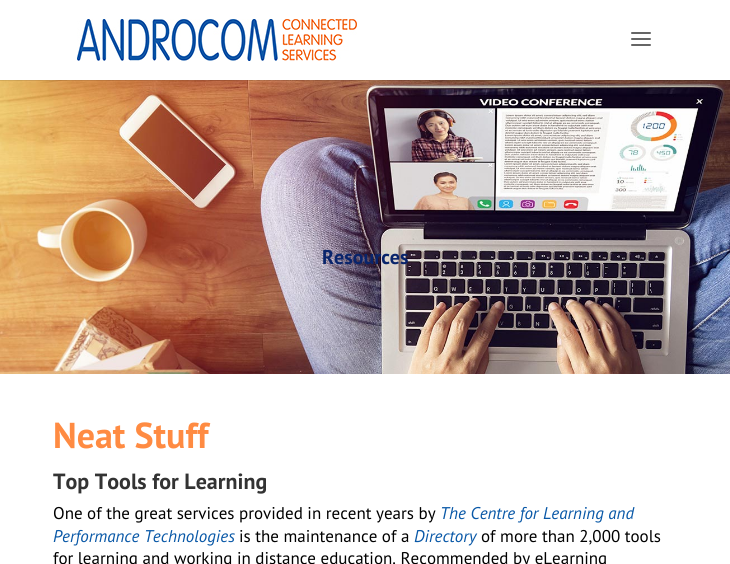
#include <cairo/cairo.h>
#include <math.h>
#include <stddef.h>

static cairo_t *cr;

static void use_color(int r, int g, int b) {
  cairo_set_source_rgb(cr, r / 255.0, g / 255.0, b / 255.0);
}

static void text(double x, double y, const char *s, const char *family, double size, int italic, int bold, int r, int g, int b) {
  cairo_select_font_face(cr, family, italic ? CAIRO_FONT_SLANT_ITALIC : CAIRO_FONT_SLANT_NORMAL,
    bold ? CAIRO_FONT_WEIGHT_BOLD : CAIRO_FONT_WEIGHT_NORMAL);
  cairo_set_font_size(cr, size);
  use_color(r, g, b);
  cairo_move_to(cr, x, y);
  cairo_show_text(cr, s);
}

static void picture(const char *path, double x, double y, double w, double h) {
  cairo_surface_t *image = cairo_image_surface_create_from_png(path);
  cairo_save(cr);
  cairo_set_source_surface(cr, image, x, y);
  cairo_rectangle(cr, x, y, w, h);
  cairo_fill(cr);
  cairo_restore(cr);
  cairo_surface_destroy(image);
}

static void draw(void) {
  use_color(255, 255, 255);
  cairo_paint(cr);
  picture("img_03.png", 0, 80, 730, 294);
  cairo_set_source_rgba(cr, 0, 0, 0, 0.1);
  cairo_rectangle(cr, 0, 80, 730, 1);
  cairo_fill(cr);
  picture("img_01.png", 77, 19, 280, 42);
  picture("img_02.png", 631, 32, 20, 14);
  text(322, 264, "Resources", "PT Sans", 20, 0, 1, 9, 36, 107);
  text(53, 448, "Neat Stuff", "PT Sans", 36, 0, 1, 255, 139, 66);
  text(53, 489, "Top Tools for Learning", "PT Sans", 22, 0, 1, 51, 51, 51);
  text(53, 519, "One of the great services provided in recent years by", "PT Sans", 17, 0, 0, 0, 0, 0);
  text(440, 519, "The Centre for Learning and", "PT Sans", 17, 1, 0, 9, 88, 167);
  text(53, 542, "Performance Technologies", "PT Sans", 17, 1, 0, 9, 88, 167);
  text(239, 542, "is the maintenance of a", "PT Sans", 17, 0, 0, 0, 0, 0);
  text(414, 542, "Directory", "PT Sans", 17, 1, 0, 9, 88, 167);
  text(481, 542, "of more than 2,000 tools", "PT Sans", 17, 0, 0, 0, 0, 0);
  text(53, 564, "for learning and working in distance education. Recommended by eLearning", "PT Sans", 17, 0, 0, 0, 0, 0);
}

int main(void) {
  cairo_surface_t *surface = cairo_image_surface_create(CAIRO_FORMAT_RGB24, 730, 564);
  cr = cairo_create(surface);
  cairo_font_options_t *options = cairo_font_options_create();
  cairo_font_options_set_hint_metrics(options, CAIRO_HINT_METRICS_OFF);
  cairo_font_options_set_hint_style(options, CAIRO_HINT_STYLE_NONE);
  cairo_set_font_options(cr, options);
  cairo_set_miter_limit(cr, 4);
  draw();
  cairo_surface_write_to_png(surface, "out.png");
  cairo_font_options_destroy(options);
  cairo_destroy(cr);
  cairo_surface_destroy(surface);
  return 0;
}
